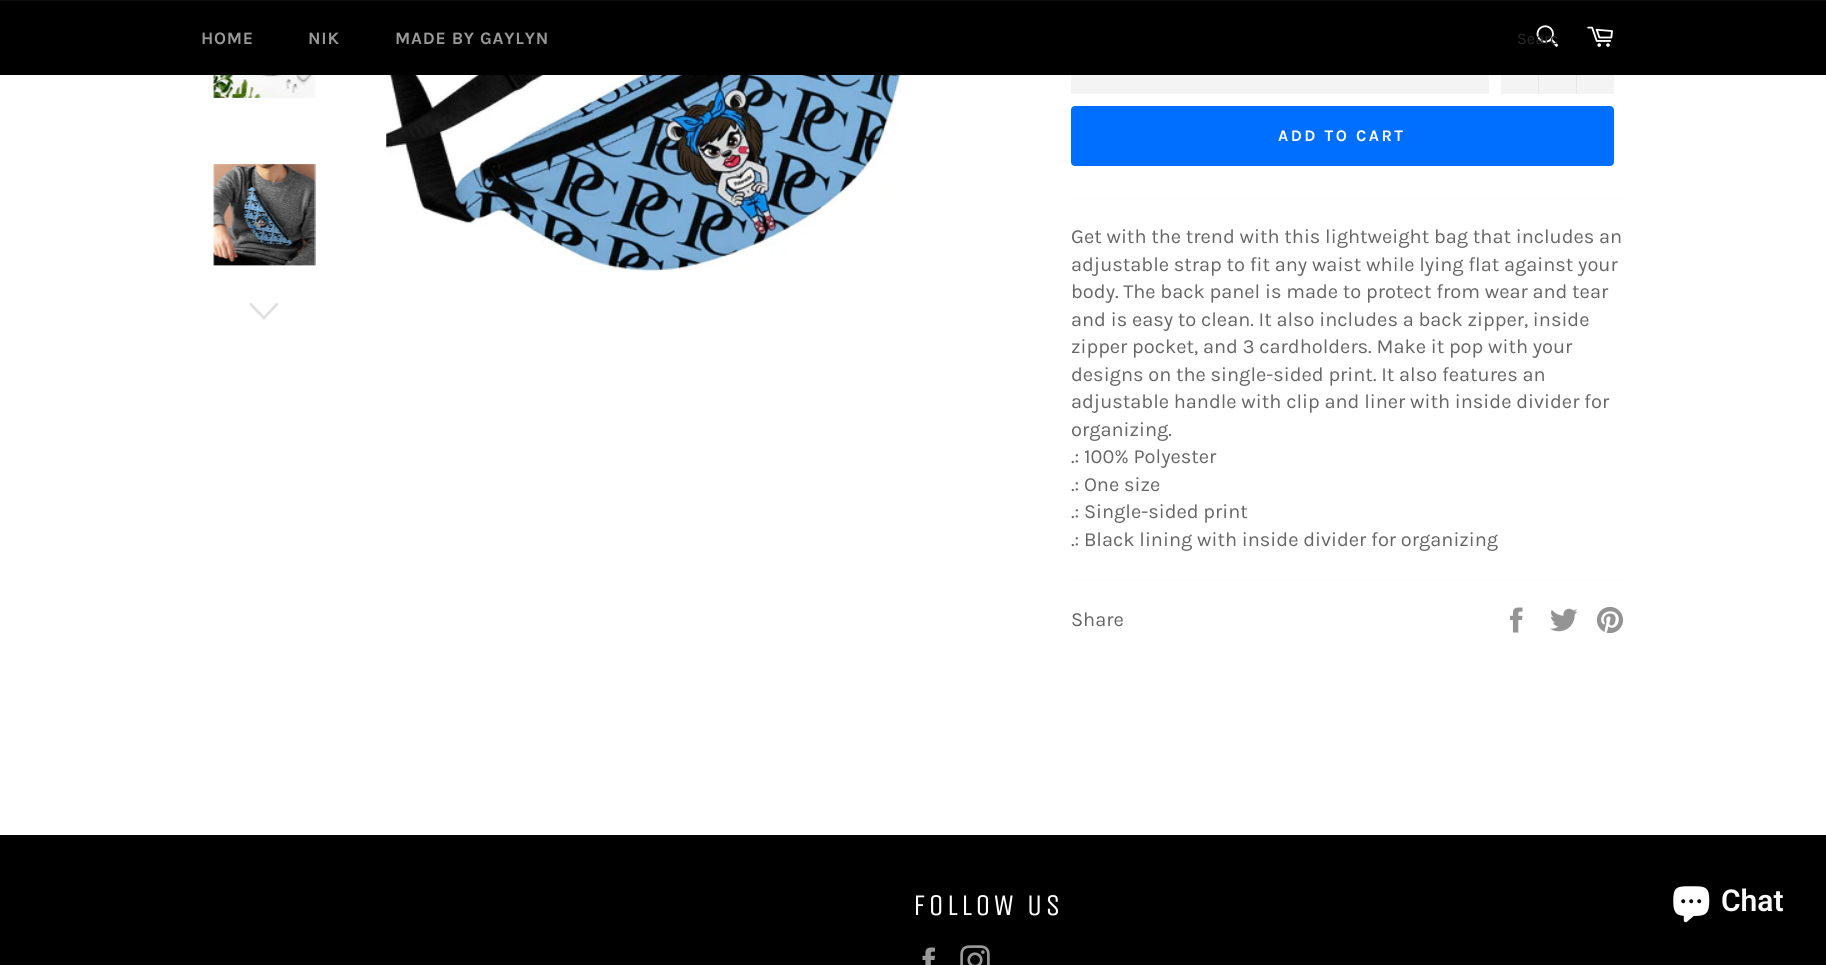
#include <cairo/cairo.h>
#include <math.h>
#include <stddef.h>

static cairo_t *cr;

static void use_color(int r, int g, int b) {
  cairo_set_source_rgb(cr, r / 255.0, g / 255.0, b / 255.0);
}

static void text(double x, double y, const char *s, const char *family, double size, int italic, int bold, int r, int g, int b) {
  cairo_select_font_face(cr, family, italic ? CAIRO_FONT_SLANT_ITALIC : CAIRO_FONT_SLANT_NORMAL,
    bold ? CAIRO_FONT_WEIGHT_BOLD : CAIRO_FONT_WEIGHT_NORMAL);
  cairo_set_font_size(cr, size);
  use_color(r, g, b);
  cairo_move_to(cr, x, y);
  cairo_show_text(cr, s);
}

static void spaced_text(double x, double y, const char *s, double letter, double word) {
  cairo_move_to(cr, x, y);
  while (*s) {
    char ch[5] = {0};
    int n = 0;
    do ch[n++] = *s++; while ((*s & 0xC0) == 0x80);
    cairo_show_text(cr, ch);
    cairo_rel_move_to(cr, letter + word * (*ch == ' '), 0);
  }
}

static void box(double x, double y, double w, double h, int r, int g, int b) {
  use_color(r, g, b);
  cairo_rectangle(cr, x, y, w, h);
  cairo_fill(cr);
}

static void round_rect(double x, double y, double w, double h, double r) {
  cairo_new_sub_path(cr);
  cairo_arc(cr, x + w - r, y + h - r, r, 0, M_PI / 2);
  cairo_arc(cr, x + r, y + h - r, r, M_PI / 2, M_PI);
  cairo_arc(cr, x + r, y + r, r, M_PI, 1.5 * M_PI);
  cairo_arc(cr, x + w - r, y + r, r, 1.5 * M_PI, 2 * M_PI);
  cairo_close_path(cr);
}

static void picture(const char *path, double x, double y, double w, double h) {
  cairo_surface_t *image = cairo_image_surface_create_from_png(path);
  cairo_save(cr);
  cairo_set_source_surface(cr, image, x, y);
  cairo_rectangle(cr, x, y, w, h);
  cairo_fill(cr);
  cairo_restore(cr);
  cairo_surface_destroy(image);
}

static void draw(void) {
  use_color(255, 255, 255);
  cairo_paint(cr);
  box(0, 1, 1826, 74, 0, 0, 0);
  box(0, 0, 1826, 1, 13, 13, 13);
  picture("img_01.png", 1536, 25, 23, 22);
  picture("img_02.png", 1587, 26, 26, 21);
  picture("img_03.png", 213, 75, 103, 23);
  picture("img_04.png", 213, 164, 103, 102);
  use_color(224, 224, 224);
  cairo_new_path(cr);
  cairo_move_to(cr, 276.5, 302.5);
  cairo_line_to(cr, 278.5, 304.5);
  cairo_line_to(cr, 264, 320);
  cairo_line_to(cr, 249, 304.5);
  cairo_line_to(cr, 251, 302.5);
  cairo_line_to(cr, 264, 316);
  cairo_close_path(cr);
  cairo_fill(cr);
  picture("img_05.png", 386, 75, 540, 198);
  box(1071, 75, 418, 19, 244, 244, 244);
  box(1501, 75, 113, 19, 244, 244, 244);
  box(1538, 75, 1, 19, 231, 231, 231);
  box(1576, 75, 1, 19, 231, 231, 231);
  use_color(0, 110, 255);
  round_rect(1071, 106, 543, 60, 4);
  cairo_fill(cr);
  box(1071, 198, 555, 1, 250, 252, 255);
  box(1071, 579, 555, 1, 250, 252, 255);
  picture("img_06.png", 1510, 607, 13, 26);
  picture("img_07.png", 1550, 608, 28, 24);
  picture("img_08.png", 1596, 606, 28, 28);
  box(0, 835, 1826, 130, 0, 0, 0);
  picture("img_09.png", 922, 947, 13, 18);
  picture("img_10.png", 960, 945, 30, 20);
  picture("img_11.png", 1673, 886, 37, 37);
  cairo_select_font_face(cr, "Karla", CAIRO_FONT_SLANT_NORMAL, CAIRO_FONT_WEIGHT_BOLD);
  cairo_set_font_size(cr, 17.5);
  use_color(153, 153, 153);
  spaced_text(201, 44, "HOME", 0.75, 0);
  spaced_text(308, 44, "NIK", 0.75, 0);
  spaced_text(395, 44, "MADE BY GAYLYN", 0.75, 0);
  text(1517, 44, "Searc", "Karla", 16.25, 0, 0, 42, 42, 42);
  cairo_select_font_face(cr, "Karla", CAIRO_FONT_SLANT_NORMAL, CAIRO_FONT_WEIGHT_BOLD);
  use_color(255, 255, 255);
  spaced_text(1278, 141, "ADD TO CART", 2.5, 0);
  text(1071, 243, "Get with the trend with this lightweight bag that includes an", "Karla", 20, 0, 0, 102, 102, 102);
  text(1071, 271, "adjustable strap to fit any waist while lying flat against your", "Karla", 20, 0, 0, 102, 102, 102);
  text(1071, 298, "body. The back panel is made to protect from wear and tear", "Karla", 20, 0, 0, 102, 102, 102);
  text(1071, 326, "and is easy to clean. It also includes a back zipper, inside", "Karla", 20, 0, 0, 102, 102, 102);
  text(1071, 353, "zipper pocket, and 3 cardholders. Make it pop with your", "Karla", 20, 0, 0, 102, 102, 102);
  text(1071, 381, "designs on the single-sided print. It also features an", "Karla", 20, 0, 0, 102, 102, 102);
  text(1071, 408, "adjustable handle with clip and liner with inside divider for", "Karla", 20, 0, 0, 102, 102, 102);
  text(1071, 436, "organizing.", "Karla", 20, 0, 0, 102, 102, 102);
  text(1071, 463, ".: 100% Polyester", "Karla", 20, 0, 0, 102, 102, 102);
  text(1071, 491, ".: One size", "Karla", 20, 0, 0, 102, 102, 102);
  text(1071, 518, ".: Single-sided print", "Karla", 20, 0, 0, 102, 102, 102);
  text(1071, 546, ".: Black lining with inside divider for organizing", "Karla", 20, 0, 0, 102, 102, 102);
  text(1071, 626, "Share", "Karla", 20, 0, 0, 102, 102, 102);
  cairo_select_font_face(cr, "Unica One", CAIRO_FONT_SLANT_NORMAL, CAIRO_FONT_WEIGHT_NORMAL);
  cairo_set_font_size(cr, 30);
  use_color(255, 255, 255);
  spaced_text(913, 915, "FOLLOW US", 3, 0);
  text(1721, 911, "Chat", "Roboto SemiBold", 30, 0, 0, 255, 255, 255);
}

int main(void) {
  cairo_surface_t *surface = cairo_image_surface_create(CAIRO_FORMAT_RGB24, 1826, 965);
  cr = cairo_create(surface);
  cairo_font_options_t *options = cairo_font_options_create();
  cairo_font_options_set_hint_metrics(options, CAIRO_HINT_METRICS_OFF);
  cairo_font_options_set_hint_style(options, CAIRO_HINT_STYLE_NONE);
  cairo_set_font_options(cr, options);
  cairo_set_miter_limit(cr, 4);
  draw();
  cairo_surface_write_to_png(surface, "out.png");
  cairo_font_options_destroy(options);
  cairo_destroy(cr);
  cairo_surface_destroy(surface);
  return 0;
}
